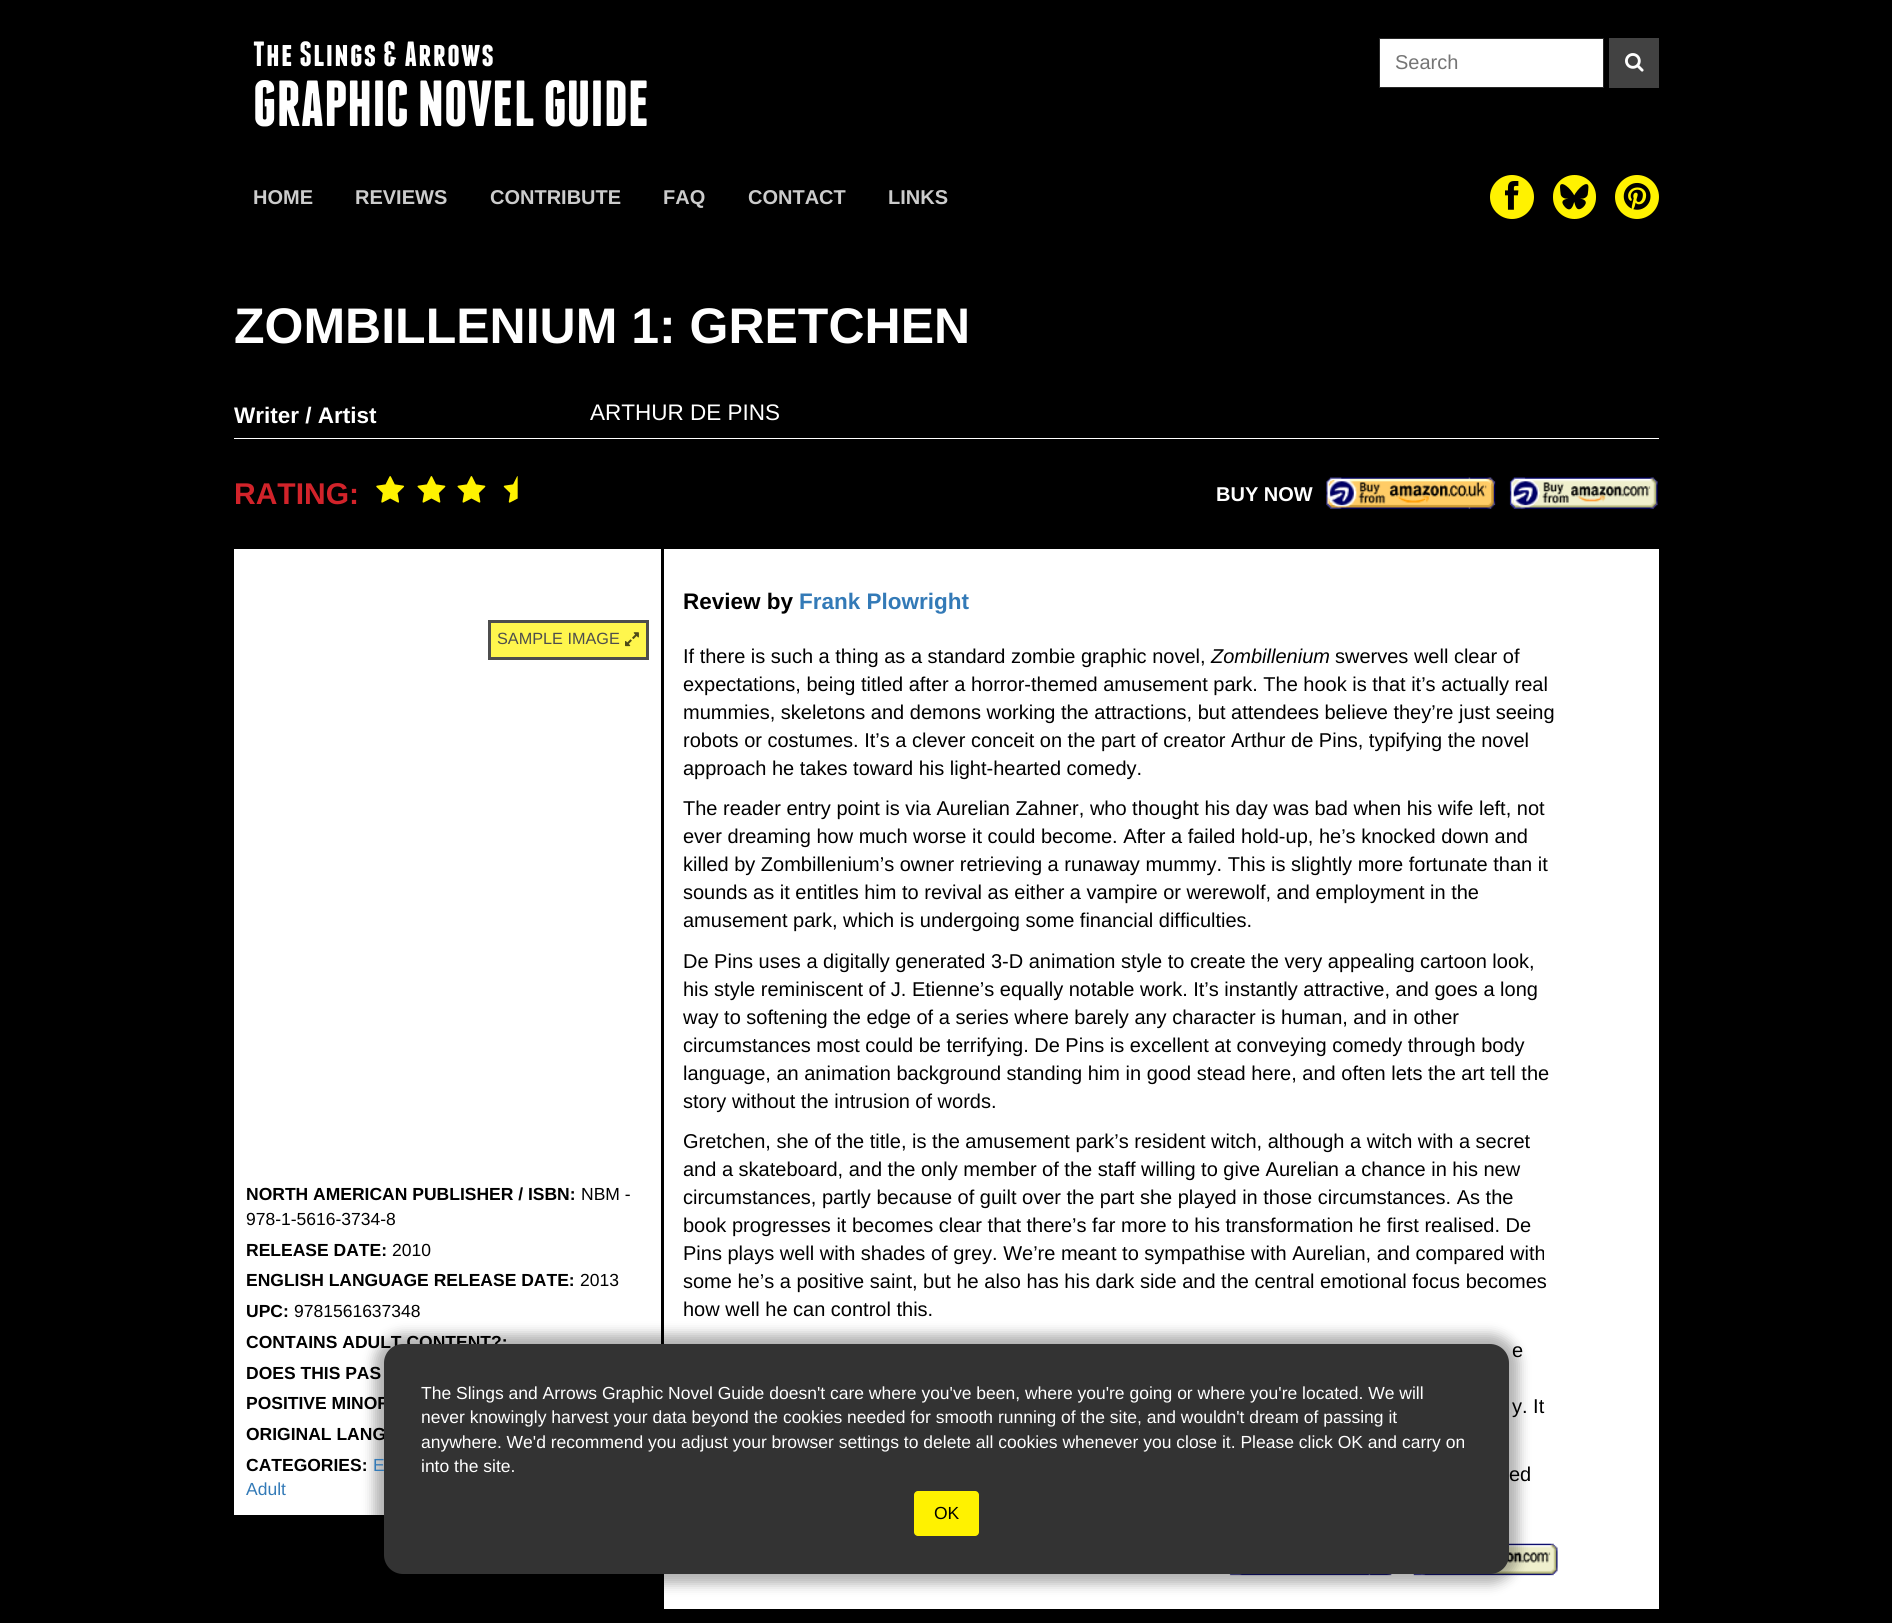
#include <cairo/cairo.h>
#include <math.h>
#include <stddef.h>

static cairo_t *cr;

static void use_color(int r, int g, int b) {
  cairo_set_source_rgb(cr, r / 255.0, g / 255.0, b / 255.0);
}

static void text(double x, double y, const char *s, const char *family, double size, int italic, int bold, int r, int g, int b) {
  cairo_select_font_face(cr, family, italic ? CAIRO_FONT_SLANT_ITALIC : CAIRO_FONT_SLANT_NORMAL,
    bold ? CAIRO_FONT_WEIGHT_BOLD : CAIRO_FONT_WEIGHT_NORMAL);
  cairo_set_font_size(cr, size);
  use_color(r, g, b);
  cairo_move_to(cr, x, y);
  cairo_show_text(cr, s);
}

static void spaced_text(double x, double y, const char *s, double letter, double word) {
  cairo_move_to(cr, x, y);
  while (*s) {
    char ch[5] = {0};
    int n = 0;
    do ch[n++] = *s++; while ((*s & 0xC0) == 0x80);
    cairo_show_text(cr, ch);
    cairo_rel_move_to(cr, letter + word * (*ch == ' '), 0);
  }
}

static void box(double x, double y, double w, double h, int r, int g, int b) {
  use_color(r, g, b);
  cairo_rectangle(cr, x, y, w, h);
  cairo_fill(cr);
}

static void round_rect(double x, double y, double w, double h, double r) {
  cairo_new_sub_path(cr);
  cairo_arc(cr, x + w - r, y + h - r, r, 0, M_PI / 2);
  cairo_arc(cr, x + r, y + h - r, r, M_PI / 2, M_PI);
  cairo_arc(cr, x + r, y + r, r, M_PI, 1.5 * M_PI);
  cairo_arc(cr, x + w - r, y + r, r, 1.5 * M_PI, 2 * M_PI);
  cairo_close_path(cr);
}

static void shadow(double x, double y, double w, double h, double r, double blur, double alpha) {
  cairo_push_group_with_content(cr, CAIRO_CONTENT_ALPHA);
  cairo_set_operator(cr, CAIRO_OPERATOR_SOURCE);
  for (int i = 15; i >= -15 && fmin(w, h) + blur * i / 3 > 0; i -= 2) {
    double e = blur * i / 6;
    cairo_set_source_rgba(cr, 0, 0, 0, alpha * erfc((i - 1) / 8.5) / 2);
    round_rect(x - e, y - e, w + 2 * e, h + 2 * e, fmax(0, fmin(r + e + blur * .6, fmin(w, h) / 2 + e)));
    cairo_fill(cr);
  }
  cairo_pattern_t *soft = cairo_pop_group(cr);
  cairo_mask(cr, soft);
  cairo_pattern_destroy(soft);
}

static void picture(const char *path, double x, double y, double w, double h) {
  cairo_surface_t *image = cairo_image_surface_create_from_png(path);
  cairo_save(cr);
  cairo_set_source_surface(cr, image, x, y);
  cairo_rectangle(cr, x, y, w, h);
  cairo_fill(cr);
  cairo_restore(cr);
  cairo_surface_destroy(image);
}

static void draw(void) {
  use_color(0, 0, 0);
  cairo_paint(cr);
  use_color(255, 255, 255);
  cairo_rectangle(cr, 1379.5, 38.5, 224, 49);
  cairo_fill_preserve(cr);
  use_color(40, 40, 40);
  cairo_set_line_width(cr, 1);
  cairo_stroke(cr);
  box(1609, 38, 50, 50, 66, 66, 66);
  picture("img_01.png", 1625, 53, 19, 19);
  use_color(255, 242, 0);
  cairo_arc(cr, 1512, 197, 22, 0, 2 * M_PI);
  cairo_fill(cr);
  picture("img_02.png", 1505, 181, 14, 29);
  round_rect(1553, 175, 43, 44, 21.5);
  cairo_fill(cr);
  picture("img_03.png", 1560, 184, 29, 26);
  cairo_arc(cr, 1637, 197, 22, 0, 2 * M_PI);
  cairo_fill(cr);
  picture("img_04.png", 1623, 182, 28, 28);
  box(234, 438, 1425, 1, 255, 255, 255);
  picture("img_05.png", 376, 476, 29, 27);
  picture("img_06.png", 417, 476, 29, 27);
  picture("img_06.png", 457, 476, 29, 27);
  picture("img_07.png", 503, 476, 15, 27);
  picture("img_08.png", 1326, 477, 170, 32);
  picture("img_09.png", 1509, 477, 149, 32);
  box(234, 549, 427, 966, 255, 255, 255);
  use_color(255, 246, 77);
  cairo_rectangle(cr, 489.5, 621.5, 158, 37);
  cairo_fill_preserve(cr);
  use_color(77, 77, 77);
  cairo_set_line_width(cr, 3);
  cairo_stroke(cr);
  picture("img_10.png", 625, 632, 14, 15);
  box(664, 549, 995, 1060, 255, 255, 255);
  picture("img_11.png", 1229, 1574, 163, 2);
  picture("img_12.png", 1413, 1543, 145, 33);
  use_color(0, 0, 0);
  shadow(374, 1334, 1145, 250, 29, 6, 0.3);
  cairo_select_font_face(cr, "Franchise", CAIRO_FONT_SLANT_NORMAL, CAIRO_FONT_WEIGHT_BOLD);
  cairo_set_font_size(cr, 35);
  use_color(255, 255, 255);
  spaced_text(253, 66, "The Slings & Arrows", 1.25, 0);
  text(253, 126, "GRAPHIC NOVEL GUIDE", "Franchise", 65, 0, 1, 255, 255, 255);
  text(1395, 69, "Search", "Liberation Sans", 20, 0, 0, 117, 117, 117);
  text(253, 204, "HOME", "Liberation Sans", 20, 0, 1, 204, 204, 204);
  text(355, 204, "REVIEWS", "Liberation Sans", 20, 0, 1, 204, 204, 204);
  text(490, 204, "CONTRIBUTE", "Liberation Sans", 20, 0, 1, 204, 204, 204);
  text(663, 204, "FAQ", "Liberation Sans", 20, 0, 1, 204, 204, 204);
  text(748, 204, "CONTACT", "Liberation Sans", 20, 0, 1, 204, 204, 204);
  text(888, 204, "LINKS", "Liberation Sans", 20, 0, 1, 204, 204, 204);
  text(234, 343, "ZOMBILLENIUM 1: GRETCHEN", "Liberation Sans", 50, 0, 1, 255, 255, 255);
  text(234, 423, "Writer / Artist", "Liberation Sans", 22.5, 0, 1, 255, 255, 255);
  text(590, 420, "ARTHUR DE PINS", "Liberation Sans", 22.5, 0, 0, 255, 255, 255);
  text(234, 504, "RATING:", "Liberation Sans", 30, 0, 1, 210, 35, 42);
  text(1216, 501, "BUY NOW", "Liberation Sans", 20, 0, 1, 255, 255, 255);
  text(497, 644, "SAMPLE IMAGE", "Liberation Sans", 16.25, 0, 0, 77, 77, 77);
  text(246, 1200, "NORTH AMERICAN PUBLISHER / ISBN:", "Liberation Sans", 17.5, 0, 1, 0, 0, 0);
  text(581, 1200, "NBM -", "Liberation Sans", 17.5, 0, 0, 0, 0, 0);
  text(246, 1225, "978-1-5616-3734-8", "Liberation Sans", 17.5, 0, 0, 0, 0, 0);
  text(246, 1256, "RELEASE DATE:", "Liberation Sans", 17.5, 0, 1, 0, 0, 0);
  text(392, 1256, "2010", "Liberation Sans", 17.5, 0, 0, 0, 0, 0);
  text(246, 1286, "ENGLISH LANGUAGE RELEASE DATE:", "Liberation Sans", 17.5, 0, 1, 0, 0, 0);
  text(580, 1286, "2013", "Liberation Sans", 17.5, 0, 0, 0, 0, 0);
  text(246, 1317, "UPC:", "Liberation Sans", 17.5, 0, 1, 0, 0, 0);
  text(294, 1317, "9781561637348", "Liberation Sans", 17.5, 0, 0, 0, 0, 0);
  text(246, 1348, "CONTAINS ADULT CONTENT?:", "Liberation Sans", 17.5, 0, 1, 0, 0, 0);
  text(246, 1379, "DOES THIS PAS", "Liberation Sans", 17.5, 0, 1, 0, 0, 0);
  text(246, 1409, "POSITIVE MINOR", "Liberation Sans", 17.5, 0, 1, 0, 0, 0);
  text(246, 1440, "ORIGINAL LANG", "Liberation Sans", 17.5, 0, 1, 0, 0, 0);
  text(246, 1471, "CATEGORIES:", "Liberation Sans", 17.5, 0, 1, 0, 0, 0);
  text(373, 1471, "E", "Liberation Sans", 17.5, 0, 0, 51, 122, 183);
  text(246, 1495, "Adult", "Liberation Sans", 17.5, 0, 0, 51, 122, 183);
  text(683, 609, "Review by", "Liberation Sans", 22.5, 0, 1, 0, 0, 0);
  text(799, 609, "Frank Plowright", "Liberation Sans", 22.5, 0, 1, 51, 122, 183);
  text(683, 663, "If there is such a thing as a standard zombie graphic novel,", "Liberation Sans", 20, 0, 0, 0, 0, 0);
  text(1211, 663, "Zombillenium", "Liberation Sans", 20, 1, 0, 0, 0, 0);
  text(1335, 663, "swerves well clear of", "Liberation Sans", 20, 0, 0, 0, 0, 0);
  text(683, 691, "expectations, being titled after a horror-themed amusement park. The hook is that it’s actually real", "Liberation Sans", 20, 0, 0, 0, 0, 0);
  text(683, 719, "mummies, skeletons and demons working the attractions, but attendees believe they’re just seeing", "Liberation Sans", 20, 0, 0, 0, 0, 0);
  text(683, 747, "robots or costumes. It’s a clever conceit on the part of creator Arthur de Pins, typifying the novel", "Liberation Sans", 20, 0, 0, 0, 0, 0);
  text(683, 775, "approach he takes toward his light-hearted comedy.", "Liberation Sans", 20, 0, 0, 0, 0, 0);
  text(683, 815, "The reader entry point is via Aurelian Zahner, who thought his day was bad when his wife left, not", "Liberation Sans", 20, 0, 0, 0, 0, 0);
  text(683, 843, "ever dreaming how much worse it could become. After a failed hold-up, he’s knocked down and", "Liberation Sans", 20, 0, 0, 0, 0, 0);
  text(683, 871, "killed by Zombillenium’s owner retrieving a runaway mummy. This is slightly more fortunate than it", "Liberation Sans", 20, 0, 0, 0, 0, 0);
  text(683, 899, "sounds as it entitles him to revival as either a vampire or werewolf, and employment in the", "Liberation Sans", 20, 0, 0, 0, 0, 0);
  text(683, 927, "amusement park, which is undergoing some financial difficulties.", "Liberation Sans", 20, 0, 0, 0, 0, 0);
  text(683, 968, "De Pins uses a digitally generated 3-D animation style to create the very appealing cartoon look,", "Liberation Sans", 20, 0, 0, 0, 0, 0);
  text(683, 996, "his style reminiscent of J. Etienne’s equally notable work. It’s instantly attractive, and goes a long", "Liberation Sans", 20, 0, 0, 0, 0, 0);
  text(683, 1024, "way to softening the edge of a series where barely any character is human, and in other", "Liberation Sans", 20, 0, 0, 0, 0, 0);
  text(683, 1052, "circumstances most could be terrifying. De Pins is excellent at conveying comedy through body", "Liberation Sans", 20, 0, 0, 0, 0, 0);
  text(683, 1080, "language, an animation background standing him in good stead here, and often lets the art tell the", "Liberation Sans", 20, 0, 0, 0, 0, 0);
  text(683, 1108, "story without the intrusion of words.", "Liberation Sans", 20, 0, 0, 0, 0, 0);
  text(683, 1148, "Gretchen, she of the title, is the amusement park’s resident witch, although a witch with a secret", "Liberation Sans", 20, 0, 0, 0, 0, 0);
  text(683, 1176, "and a skateboard, and the only member of the staff willing to give Aurelian a chance in his new", "Liberation Sans", 20, 0, 0, 0, 0, 0);
  text(683, 1204, "circumstances, partly because of guilt over the part she played in those circumstances. As the", "Liberation Sans", 20, 0, 0, 0, 0, 0);
  text(683, 1232, "book progresses it becomes clear that there’s far more to his transformation he first realised. De", "Liberation Sans", 20, 0, 0, 0, 0, 0);
  text(683, 1260, "Pins plays well with shades of grey. We’re meant to sympathise with Aurelian, and compared with", "Liberation Sans", 20, 0, 0, 0, 0, 0);
  text(683, 1288, "some he’s a positive saint, but he also has his dark side and the central emotional focus becomes", "Liberation Sans", 20, 0, 0, 0, 0, 0);
  text(683, 1316, "how well he can control this.", "Liberation Sans", 20, 0, 0, 0, 0, 0);
  text(1512, 1357, "e", "Liberation Sans", 20, 0, 0, 0, 0, 0);
  text(1512, 1413, "y. It", "Liberation Sans", 20, 0, 0, 0, 0, 0);
  text(1509, 1481, "ed", "Liberation Sans", 20, 0, 0, 0, 0, 0);
  use_color(51, 51, 51);
  round_rect(384, 1344, 1125, 230, 19);
  cairo_fill(cr);
  text(421, 1399, "The Slings and Arrows Graphic Novel Guide doesn't care where you've been, where you're going or where you're located. We will", "Liberation Sans", 17.5, 0, 0, 255, 255, 255);
  text(421, 1423, "never knowingly harvest your data beyond the cookies needed for smooth running of the site, and wouldn't dream of passing it", "Liberation Sans", 17.5, 0, 0, 255, 255, 255);
  text(421, 1448, "anywhere. We'd recommend you adjust your browser settings to delete all cookies whenever you close it. Please click OK and carry on", "Liberation Sans", 17.5, 0, 0, 255, 255, 255);
  text(421, 1472, "into the site.", "Liberation Sans", 17.5, 0, 0, 255, 255, 255);
  use_color(255, 242, 0);
  round_rect(914, 1491, 65, 45, 4);
  cairo_fill(cr);
  text(934, 1519, "OK", "Liberation Sans", 17.5, 0, 0, 0, 0, 0);
}

int main(void) {
  cairo_surface_t *surface = cairo_image_surface_create(CAIRO_FORMAT_RGB24, 1892, 1623);
  cr = cairo_create(surface);
  cairo_font_options_t *options = cairo_font_options_create();
  cairo_font_options_set_hint_metrics(options, CAIRO_HINT_METRICS_OFF);
  cairo_font_options_set_hint_style(options, CAIRO_HINT_STYLE_NONE);
  cairo_set_font_options(cr, options);
  cairo_set_miter_limit(cr, 4);
  draw();
  cairo_surface_write_to_png(surface, "out.png");
  cairo_font_options_destroy(options);
  cairo_destroy(cr);
  cairo_surface_destroy(surface);
  return 0;
}
